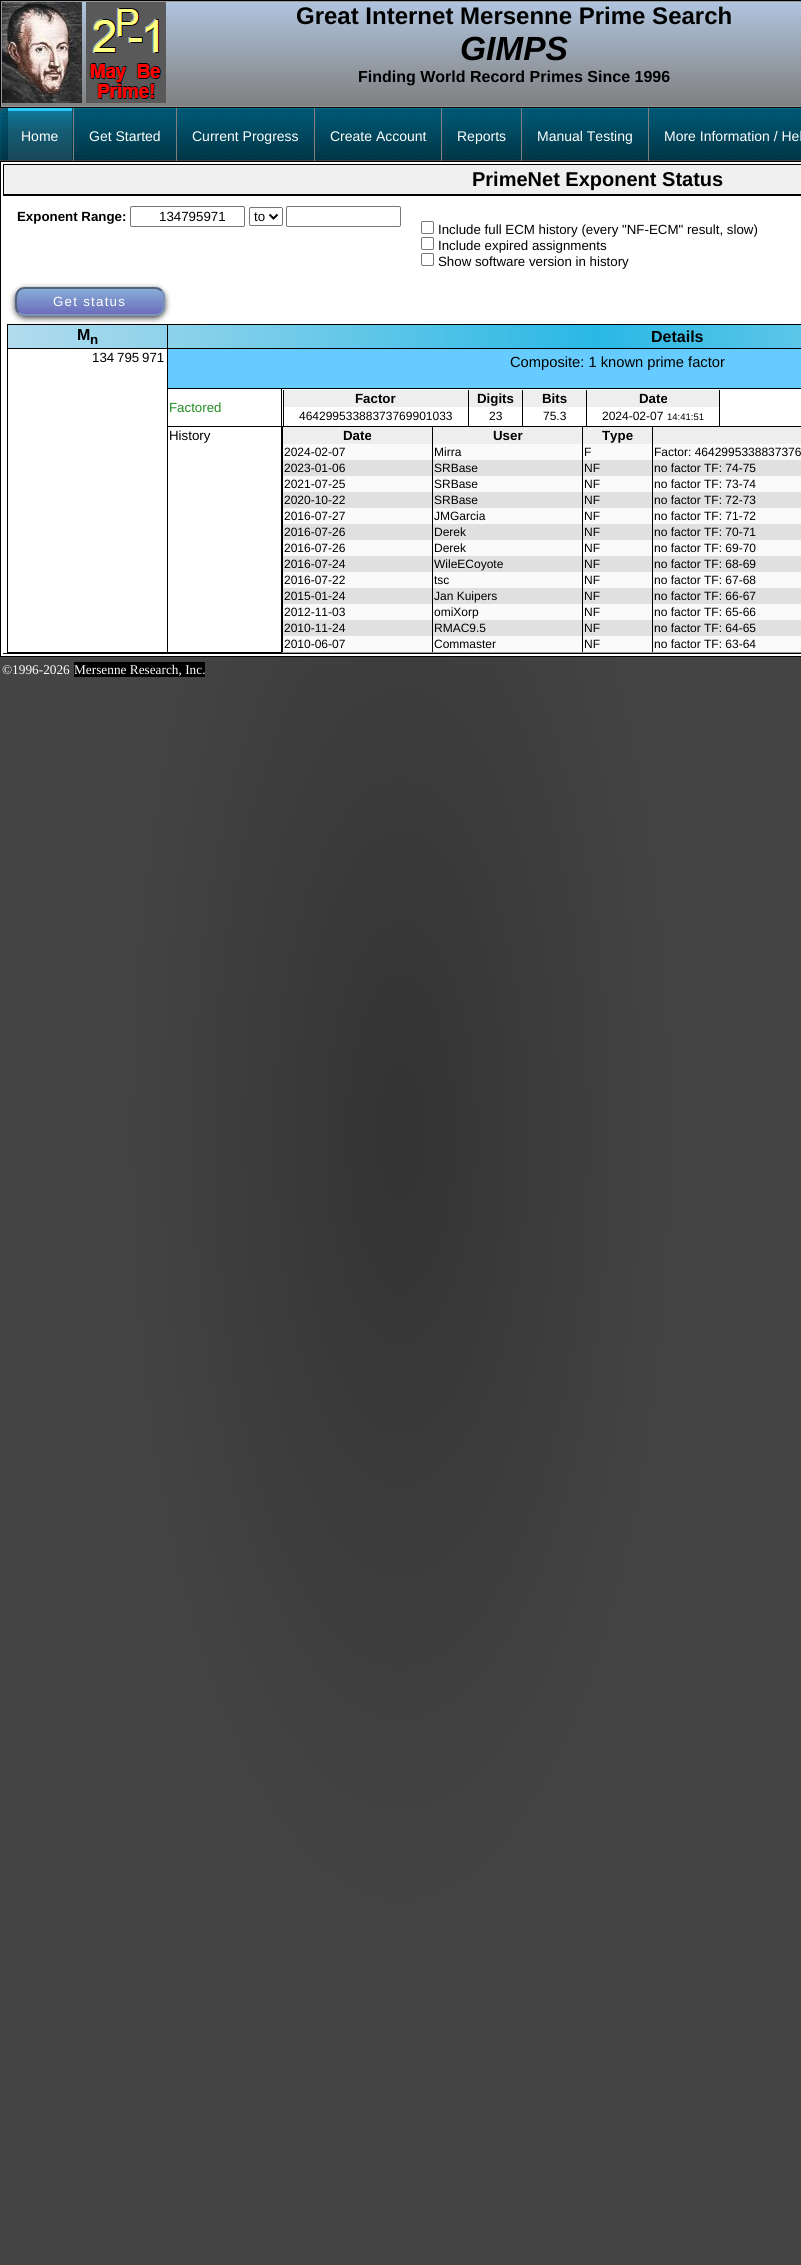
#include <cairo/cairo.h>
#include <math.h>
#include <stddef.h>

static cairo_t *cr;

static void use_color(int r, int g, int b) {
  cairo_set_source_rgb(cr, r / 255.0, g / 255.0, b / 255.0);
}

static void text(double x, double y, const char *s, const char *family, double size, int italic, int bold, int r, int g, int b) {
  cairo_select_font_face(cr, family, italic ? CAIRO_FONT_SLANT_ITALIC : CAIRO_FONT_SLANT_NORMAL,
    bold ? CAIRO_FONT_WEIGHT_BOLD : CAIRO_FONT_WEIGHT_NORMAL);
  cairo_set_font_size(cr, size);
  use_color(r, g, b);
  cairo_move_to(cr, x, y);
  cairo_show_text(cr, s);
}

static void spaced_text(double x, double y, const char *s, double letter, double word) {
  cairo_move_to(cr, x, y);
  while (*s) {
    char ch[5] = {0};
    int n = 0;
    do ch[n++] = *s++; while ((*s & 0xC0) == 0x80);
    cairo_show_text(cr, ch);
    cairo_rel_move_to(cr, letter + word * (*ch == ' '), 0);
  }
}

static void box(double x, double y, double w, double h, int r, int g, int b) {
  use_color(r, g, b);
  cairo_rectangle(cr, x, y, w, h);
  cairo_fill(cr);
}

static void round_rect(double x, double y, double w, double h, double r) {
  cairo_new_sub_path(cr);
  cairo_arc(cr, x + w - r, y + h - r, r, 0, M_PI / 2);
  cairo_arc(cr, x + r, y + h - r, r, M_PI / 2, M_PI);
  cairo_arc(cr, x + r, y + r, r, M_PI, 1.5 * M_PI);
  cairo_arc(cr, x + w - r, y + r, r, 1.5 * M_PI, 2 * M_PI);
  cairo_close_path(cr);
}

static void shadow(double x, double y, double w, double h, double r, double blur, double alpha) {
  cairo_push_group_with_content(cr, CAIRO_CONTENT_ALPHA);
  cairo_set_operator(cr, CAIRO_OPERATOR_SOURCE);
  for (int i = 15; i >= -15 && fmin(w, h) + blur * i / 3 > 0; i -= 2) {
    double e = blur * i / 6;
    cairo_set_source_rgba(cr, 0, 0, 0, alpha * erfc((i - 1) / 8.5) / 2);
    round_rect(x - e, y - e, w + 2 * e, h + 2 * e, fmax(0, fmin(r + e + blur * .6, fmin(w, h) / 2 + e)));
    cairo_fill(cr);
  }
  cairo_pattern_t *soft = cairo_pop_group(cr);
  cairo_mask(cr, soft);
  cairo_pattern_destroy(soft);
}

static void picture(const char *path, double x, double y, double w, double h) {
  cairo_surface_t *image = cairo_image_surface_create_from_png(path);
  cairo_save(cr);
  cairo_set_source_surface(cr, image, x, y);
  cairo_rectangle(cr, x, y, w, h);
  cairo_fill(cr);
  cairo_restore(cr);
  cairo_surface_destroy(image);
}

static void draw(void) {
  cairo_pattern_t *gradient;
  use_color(255, 255, 255);
  cairo_paint(cr);
  gradient = cairo_pattern_create_radial(0, 0, 0, 0, 0, 1);
  cairo_pattern_set_matrix(gradient, &(cairo_matrix_t){1.0 / 566, 0, 0, 1.0 / 1602, -1.0 * 401 / 566, -1.0 * 1133 / 1602});
  cairo_pattern_add_color_stop_rgba(gradient, 0, 0.2, 0.2, 0.2, 1);
  cairo_pattern_add_color_stop_rgba(gradient, 0.5, 0.267, 0.267, 0.267, 1);
  cairo_pattern_add_color_stop_rgba(gradient, 1, 0.267, 0.267, 0.267, 1);
  cairo_set_source(cr, gradient);
  cairo_pattern_destroy(gradient);
  cairo_rectangle(cr, 0, 108, 801, 2157);
  cairo_fill(cr);
  cairo_rectangle(cr, 0.5, 0.5, 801, 107);
  use_color(0, 0, 0);
  cairo_set_line_width(cr, 1);
  cairo_stroke(cr);
  gradient = cairo_pattern_create_linear(601, 2, 601, 106);
  cairo_pattern_add_color_stop_rgba(gradient, 0, 0.69, 0.769, 0.871, 1);
  cairo_pattern_add_color_stop_rgba(gradient, 1, 0.502, 0.502, 0.502, 1);
  cairo_set_source(cr, gradient);
  cairo_pattern_destroy(gradient);
  cairo_rectangle(cr, 2, 2, 799, 104);
  cairo_fill(cr);
  cairo_rectangle(cr, 1.5, 1.5, 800, 105);
  use_color(153, 153, 153);
  cairo_stroke(cr);
  picture("img_01.png", 2, 2, 80, 101);
  picture("img_02.png", 86, 2, 80, 101);
  picture("img_03.png", 0, 108, 6, 52);
  picture("img_04.png", 74, 108, 727, 52);
  picture("img_05.png", 6, 108, 5, 52);
  picture("img_06.png", 11, 108, 62, 52);
  box(176, 108, 1, 53, 128, 128, 128);
  box(648, 108, 1, 53, 128, 128, 128);
  box(73, 108, 1, 53, 128, 128, 128);
  box(314, 108, 1, 53, 128, 128, 128);
  box(441, 108, 1, 53, 128, 128, 128);
  box(521, 108, 1, 53, 128, 128, 128);
  use_color(255, 255, 255);
  cairo_rectangle(cr, 0.5, 161.5, 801, 495);
  cairo_fill_preserve(cr);
  use_color(0, 0, 0);
  cairo_stroke(cr);
  use_color(240, 240, 240);
  cairo_rectangle(cr, 3.5, 164.5, 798, 30);
  cairo_fill_preserve(cr);
  use_color(0, 0, 0);
  cairo_stroke(cr);
  box(3, 195, 798, 1, 0, 0, 0);
  box(3, 653, 798, 1, 0, 0, 0);
  round_rect(130.5, 206.5, 114, 20, 1.5);
  use_color(118, 118, 118);
  cairo_stroke(cr);
  round_rect(249.5, 207.5, 33, 18, 1.5);
  cairo_stroke(cr);
  cairo_new_path(cr);
  cairo_move_to(cr, 269.5, 214.5);
  cairo_line_to(cr, 273.5, 218.5);
  cairo_line_to(cr, 277.5, 214.5);
  use_color(0, 0, 0);
  cairo_set_line_width(cr, 2);
  cairo_stroke(cr);
  round_rect(286.5, 206.5, 114, 20, 1.5);
  use_color(118, 118, 118);
  cairo_set_line_width(cr, 1);
  cairo_stroke(cr);
  round_rect(421.5, 221.5, 12, 12, 1.5);
  cairo_stroke(cr);
  round_rect(421.5, 237.5, 12, 12, 1.5);
  cairo_stroke(cr);
  round_rect(421.5, 253.5, 12, 12, 1.5);
  cairo_stroke(cr);
  gradient = cairo_pattern_create_linear(8, 337, 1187, 337);
  cairo_pattern_add_color_stop_rgba(gradient, 0, 0.702, 0.863, 0.929, 1);
  cairo_pattern_add_color_stop_rgba(gradient, 0.5, 0.161, 0.722, 0.898, 1);
  cairo_pattern_add_color_stop_rgba(gradient, 1, 0.737, 0.878, 0.933, 1);
  cairo_set_source(cr, gradient);
  cairo_pattern_destroy(gradient);
  cairo_rectangle(cr, 8, 325, 793, 23);
  cairo_fill(cr);
  box(167, 324, 634, 1, 0, 0, 0);
  box(167, 348, 634, 1, 0, 0, 0);
  box(281, 388, 520, 1, 0, 0, 0);
  box(167, 426, 115, 1, 0, 0, 0);
  box(282, 427, 1, 226, 0, 0, 0);
  box(283, 427, 518, 17, 238, 238, 238);
  box(283, 444, 518, 16, 250, 250, 250);
  box(283, 460, 518, 16, 224, 224, 224);
  box(283, 476, 518, 16, 250, 250, 250);
  box(283, 492, 518, 16, 224, 224, 224);
  box(283, 508, 518, 16, 250, 250, 250);
  box(283, 524, 518, 16, 224, 224, 224);
  box(283, 540, 518, 16, 250, 250, 250);
  box(283, 556, 518, 16, 224, 224, 224);
  box(283, 572, 518, 16, 250, 250, 250);
  box(283, 588, 518, 16, 224, 224, 224);
  box(283, 604, 518, 16, 250, 250, 250);
  box(283, 620, 518, 16, 224, 224, 224);
  box(283, 636, 518, 16, 250, 250, 250);
  box(432, 427, 1, 226, 0, 0, 0);
  box(582, 427, 1, 226, 0, 0, 0);
  box(652, 427, 1, 226, 0, 0, 0);
  box(281, 652, 520, 1, 153, 153, 153);
  box(281, 426, 1, 227, 0, 0, 0);
  box(281, 426, 520, 1, 0, 0, 0);
  box(281, 388, 1, 39, 0, 0, 0);
  box(167, 388, 115, 1, 0, 0, 0);
  box(167, 652, 115, 1, 0, 0, 0);
  box(167, 426, 1, 227, 0, 0, 0);
  box(167, 388, 1, 39, 0, 0, 0);
  box(167, 348, 1, 41, 0, 0, 0);
  box(7, 348, 161, 1, 0, 0, 0);
  box(167, 324, 1, 25, 0, 0, 0);
  box(7, 324, 161, 1, 0, 0, 0);
  box(7, 652, 161, 1, 0, 0, 0);
  box(7, 348, 1, 305, 0, 0, 0);
  box(7, 324, 1, 25, 0, 0, 0);
  use_color(0, 0, 0);
  shadow(15, 289, 150, 29, 10, 3, 0.75);
  cairo_save(cr);
  round_rect(15, 287, 150, 29, 10);
  cairo_clip(cr);
  gradient = cairo_pattern_create_linear(90, 289, 90, 314);
  cairo_pattern_add_color_stop_rgba(gradient, 0, 0.533, 0.678, 0.843, 1);
  cairo_pattern_add_color_stop_rgba(gradient, 1, 0.42, 0.427, 0.733, 1);
  cairo_set_source(cr, gradient);
  cairo_pattern_destroy(gradient);
  cairo_rectangle(cr, 15, 289, 150, 25);
  cairo_fill(cr);
  cairo_restore(cr);
  cairo_new_path(cr);
  cairo_move_to(cr, 161.5, 290.5);
  cairo_curve_to(cr, 164.5, 294, 164, 298.5, 164, 303);
  cairo_curve_to(cr, 164, 309, 162.5, 315, 155, 315);
  cairo_line_to(cr, 25, 315);
  cairo_line_to(cr, 21.5, 314.5);
  cairo_line_to(cr, 18.5, 312.5);
  use_color(124, 147, 186);
  cairo_set_line_width(cr, 2);
  cairo_stroke(cr);
  cairo_new_path(cr);
  cairo_move_to(cr, 18.5, 312.5);
  cairo_curve_to(cr, 15.5, 309, 16, 304.5, 16, 300);
  cairo_curve_to(cr, 16, 294, 17.5, 288, 25, 288);
  cairo_line_to(cr, 155, 288);
  cairo_line_to(cr, 158.5, 288.5);
  cairo_line_to(cr, 161.5, 290.5);
  use_color(83, 98, 124);
  cairo_stroke(cr);
  box(168, 349, 633, 39, 102, 204, 255);
  box(284, 390, 435, 17, 238, 238, 238);
  box(283, 390, 1, 36, 0, 0, 0);
  box(468, 390, 1, 36, 0, 0, 0);
  box(522, 390, 1, 36, 0, 0, 0);
  box(719, 390, 1, 36, 0, 0, 0);
  box(586, 390, 1, 36, 0, 0, 0);
  box(74, 662, 131, 15, 0, 0, 0);
  text(296, 24, "Great Internet Mersenne Prime Search", "Liberation Sans", 24, 0, 1, 0, 0, 0);
  text(460, 60, "GIMPS", "Liberation Sans", 33.5, 1, 1, 0, 0, 0);
  text(358, 82, "Finding World Record Primes Since 1996", "Liberation Sans", 16, 0, 1, 0, 0, 0);
  text(89, 141, "Get Started", "Liberation Sans", 14, 0, 0, 255, 255, 255);
  text(537, 141, "Manual Testing", "Liberation Sans", 14, 0, 0, 255, 255, 255);
  text(664, 141, "More Information / Hel", "Liberation Sans", 14, 0, 0, 255, 255, 255);
  text(21, 141, "Home", "Liberation Sans", 14, 0, 0, 255, 255, 255);
  text(192, 141, "Current Progress", "Liberation Sans", 14, 0, 0, 255, 255, 255);
  text(330, 141, "Create Account", "Liberation Sans", 14, 0, 0, 255, 255, 255);
  text(457, 141, "Reports", "Liberation Sans", 14, 0, 0, 255, 255, 255);
  text(472, 186, "PrimeNet Exponent Status", "Liberation Sans", 20, 0, 1, 0, 0, 0);
  text(17, 221, "Exponent Range:", "Liberation Sans", 13.3, 0, 1, 0, 0, 0);
  text(159, 221, "134795971", "Liberation Sans", 13.3, 0, 0, 0, 0, 0);
  text(254, 221, "to", "Liberation Sans", 13.3, 0, 0, 0, 0, 0);
  text(438, 234, "Include full ECM history (every \"NF-ECM\" result, slow)", "Liberation Sans", 13.3, 0, 0, 0, 0, 0);
  text(438, 250, "Include expired assignments", "Liberation Sans", 13.3, 0, 0, 0, 0, 0);
  text(438, 266, "Show software version in history", "Liberation Sans", 13.3, 0, 0, 0, 0, 0);
  use_color(255, 255, 255);
  spaced_text(53, 306, "Get status", 1.25, 0);
  text(77, 340, "M", "Liberation Sans", 16, 0, 1, 0, 0, 0);
  text(90, 344, "n", "Liberation Sans", 13.3, 0, 1, 0, 0, 0);
  text(651, 342, "Details", "Liberation Sans", 16, 0, 1, 0, 0, 0);
  text(92, 362, "134", "Liberation Sans", 13.3, 0, 0, 0, 0, 0);
  text(117, 362, "795", "Liberation Sans", 13.3, 0, 0, 0, 0, 0);
  text(142, 362, "971", "Liberation Sans", 13.3, 0, 0, 0, 0, 0);
  text(510, 367, "Composite: 1 known prime factor", "Liberation Sans", 14.7, 0, 0, 0, 0, 0);
  text(169, 412, "Factored", "Liberation Sans", 13.3, 0, 0, 34, 139, 34);
  text(355, 403, "Factor", "Liberation Sans", 13.3, 0, 1, 0, 0, 0);
  text(477, 403, "Digits", "Liberation Sans", 13.3, 0, 1, 0, 0, 0);
  text(542, 403, "Bits", "Liberation Sans", 13.3, 0, 1, 0, 0, 0);
  text(639, 403, "Date", "Liberation Sans", 13.3, 0, 1, 0, 0, 0);
  text(299, 420, "46429953388373769901033", "Liberation Sans", 12, 0, 0, 0, 0, 0);
  text(489, 420, "23", "Liberation Sans", 12, 0, 0, 0, 0, 0);
  text(543, 420, "75.3", "Liberation Sans", 12, 0, 0, 0, 0, 0);
  text(602, 420, "2024-02-07", "Liberation Sans", 12, 0, 0, 0, 0, 0);
  text(667, 420, "14:41:51", "Liberation Sans", 9.5, 0, 0, 0, 0, 0);
  text(169, 440, "History", "Liberation Sans", 13.3, 0, 0, 0, 0, 0);
  text(343, 440, "Date", "Liberation Sans", 13.3, 0, 1, 0, 0, 0);
  text(493, 440, "User", "Liberation Sans", 13.3, 0, 1, 0, 0, 0);
  text(602, 440, "Type", "Liberation Sans", 13.3, 0, 1, 0, 0, 0);
  text(284, 456, "2024-02-07", "Liberation Sans", 12, 0, 0, 0, 0, 0);
  text(434, 456, "Mirra", "Liberation Sans", 12, 0, 0, 0, 0, 0);
  text(584, 456, "F", "Liberation Sans", 12, 0, 0, 0, 0, 0);
  text(654, 456, "Factor: 4642995338837376", "Liberation Sans", 12, 0, 0, 0, 0, 0);
  text(284, 472, "2023-01-06", "Liberation Sans", 12, 0, 0, 0, 0, 0);
  text(434, 472, "SRBase", "Liberation Sans", 12, 0, 0, 0, 0, 0);
  text(584, 472, "NF", "Liberation Sans", 12, 0, 0, 0, 0, 0);
  text(654, 472, "no factor TF: 74-75", "Liberation Sans", 12, 0, 0, 0, 0, 0);
  text(284, 488, "2021-07-25", "Liberation Sans", 12, 0, 0, 0, 0, 0);
  text(434, 488, "SRBase", "Liberation Sans", 12, 0, 0, 0, 0, 0);
  text(584, 488, "NF", "Liberation Sans", 12, 0, 0, 0, 0, 0);
  text(654, 488, "no factor TF: 73-74", "Liberation Sans", 12, 0, 0, 0, 0, 0);
  text(284, 504, "2020-10-22", "Liberation Sans", 12, 0, 0, 0, 0, 0);
  text(434, 504, "SRBase", "Liberation Sans", 12, 0, 0, 0, 0, 0);
  text(584, 504, "NF", "Liberation Sans", 12, 0, 0, 0, 0, 0);
  text(654, 504, "no factor TF: 72-73", "Liberation Sans", 12, 0, 0, 0, 0, 0);
  text(284, 520, "2016-07-27", "Liberation Sans", 12, 0, 0, 0, 0, 0);
  text(434, 520, "JMGarcia", "Liberation Sans", 12, 0, 0, 0, 0, 0);
  text(584, 520, "NF", "Liberation Sans", 12, 0, 0, 0, 0, 0);
  text(654, 520, "no factor TF: 71-72", "Liberation Sans", 12, 0, 0, 0, 0, 0);
  text(284, 536, "2016-07-26", "Liberation Sans", 12, 0, 0, 0, 0, 0);
  text(434, 536, "Derek", "Liberation Sans", 12, 0, 0, 0, 0, 0);
  text(584, 536, "NF", "Liberation Sans", 12, 0, 0, 0, 0, 0);
  text(654, 536, "no factor TF: 70-71", "Liberation Sans", 12, 0, 0, 0, 0, 0);
  text(284, 552, "2016-07-26", "Liberation Sans", 12, 0, 0, 0, 0, 0);
  text(434, 552, "Derek", "Liberation Sans", 12, 0, 0, 0, 0, 0);
  text(584, 552, "NF", "Liberation Sans", 12, 0, 0, 0, 0, 0);
  text(654, 552, "no factor TF: 69-70", "Liberation Sans", 12, 0, 0, 0, 0, 0);
  text(284, 568, "2016-07-24", "Liberation Sans", 12, 0, 0, 0, 0, 0);
  text(434, 568, "WileECoyote", "Liberation Sans", 12, 0, 0, 0, 0, 0);
  text(584, 568, "NF", "Liberation Sans", 12, 0, 0, 0, 0, 0);
  text(654, 568, "no factor TF: 68-69", "Liberation Sans", 12, 0, 0, 0, 0, 0);
  text(284, 584, "2016-07-22", "Liberation Sans", 12, 0, 0, 0, 0, 0);
  text(434, 584, "tsc", "Liberation Sans", 12, 0, 0, 0, 0, 0);
  text(584, 584, "NF", "Liberation Sans", 12, 0, 0, 0, 0, 0);
  text(654, 584, "no factor TF: 67-68", "Liberation Sans", 12, 0, 0, 0, 0, 0);
  text(284, 600, "2015-01-24", "Liberation Sans", 12, 0, 0, 0, 0, 0);
  text(434, 600, "Jan Kuipers", "Liberation Sans", 12, 0, 0, 0, 0, 0);
  text(584, 600, "NF", "Liberation Sans", 12, 0, 0, 0, 0, 0);
  text(654, 600, "no factor TF: 66-67", "Liberation Sans", 12, 0, 0, 0, 0, 0);
  text(284, 616, "2012-11-03", "Liberation Sans", 12, 0, 0, 0, 0, 0);
  text(434, 616, "omiXorp", "Liberation Sans", 12, 0, 0, 0, 0, 0);
  text(584, 616, "NF", "Liberation Sans", 12, 0, 0, 0, 0, 0);
  text(654, 616, "no factor TF: 65-66", "Liberation Sans", 12, 0, 0, 0, 0, 0);
  text(284, 632, "2010-11-24", "Liberation Sans", 12, 0, 0, 0, 0, 0);
  text(434, 632, "RMAC9.5", "Liberation Sans", 12, 0, 0, 0, 0, 0);
  text(584, 632, "NF", "Liberation Sans", 12, 0, 0, 0, 0, 0);
  text(654, 632, "no factor TF: 64-65", "Liberation Sans", 12, 0, 0, 0, 0, 0);
  text(284, 648, "2010-06-07", "Liberation Sans", 12, 0, 0, 0, 0, 0);
  text(434, 648, "Commaster", "Liberation Sans", 12, 0, 0, 0, 0, 0);
  text(584, 648, "NF", "Liberation Sans", 12, 0, 0, 0, 0, 0);
  text(654, 648, "no factor TF: 63-64", "Liberation Sans", 12, 0, 0, 0, 0, 0);
  text(2, 674, "©1996-2026", "Liberation Serif", 13.3, 0, 0, 255, 255, 255);
  text(74, 674, "Mersenne Research, Inc.", "Liberation Serif", 13.3, 0, 0, 255, 255, 255);
}

int main(void) {
  cairo_surface_t *surface = cairo_image_surface_create(CAIRO_FORMAT_RGB24, 801, 2265);
  cr = cairo_create(surface);
  cairo_font_options_t *options = cairo_font_options_create();
  cairo_font_options_set_hint_metrics(options, CAIRO_HINT_METRICS_OFF);
  cairo_font_options_set_hint_style(options, CAIRO_HINT_STYLE_NONE);
  cairo_set_font_options(cr, options);
  cairo_set_miter_limit(cr, 4);
  draw();
  cairo_surface_write_to_png(surface, "out.png");
  cairo_font_options_destroy(options);
  cairo_destroy(cr);
  cairo_surface_destroy(surface);
  return 0;
}
